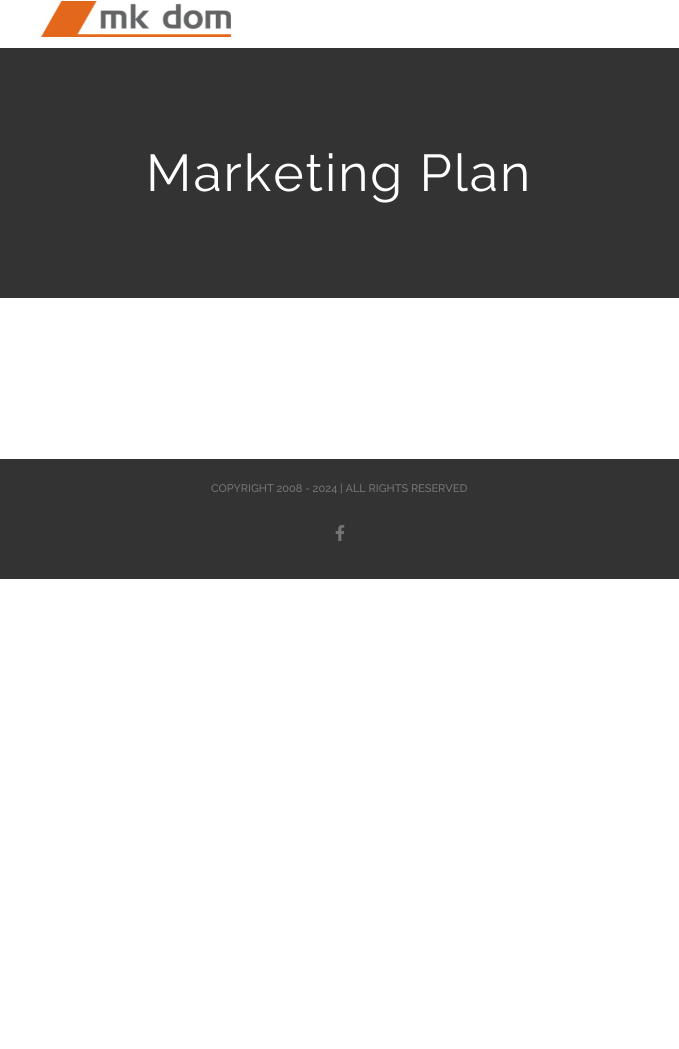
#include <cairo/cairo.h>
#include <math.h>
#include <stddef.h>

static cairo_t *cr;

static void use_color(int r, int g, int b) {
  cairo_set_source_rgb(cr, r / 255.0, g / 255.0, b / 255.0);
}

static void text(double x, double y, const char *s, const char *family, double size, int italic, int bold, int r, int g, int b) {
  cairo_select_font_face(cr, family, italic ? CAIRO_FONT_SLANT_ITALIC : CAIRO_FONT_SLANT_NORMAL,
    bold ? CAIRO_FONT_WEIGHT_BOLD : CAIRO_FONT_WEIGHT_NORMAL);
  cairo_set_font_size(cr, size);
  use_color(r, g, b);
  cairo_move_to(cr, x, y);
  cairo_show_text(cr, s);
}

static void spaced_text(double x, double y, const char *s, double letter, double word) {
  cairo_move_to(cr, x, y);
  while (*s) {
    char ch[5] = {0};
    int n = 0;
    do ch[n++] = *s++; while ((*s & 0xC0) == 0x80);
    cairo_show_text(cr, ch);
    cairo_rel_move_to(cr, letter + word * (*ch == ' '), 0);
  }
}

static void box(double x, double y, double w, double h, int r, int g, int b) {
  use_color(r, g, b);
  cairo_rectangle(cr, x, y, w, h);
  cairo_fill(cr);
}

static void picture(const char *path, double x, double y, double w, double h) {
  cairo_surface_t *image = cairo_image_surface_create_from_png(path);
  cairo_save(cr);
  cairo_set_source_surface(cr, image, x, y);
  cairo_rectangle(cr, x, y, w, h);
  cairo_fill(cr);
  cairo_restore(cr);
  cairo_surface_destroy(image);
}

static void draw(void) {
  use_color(255, 255, 255);
  cairo_paint(cr);
  picture("img_01.png", 41, 1, 190, 36);
  box(0, 48, 679, 250, 51, 51, 51);
  box(0, 459, 679, 120, 51, 51, 51);
  picture("img_02.png", 335, 525, 10, 16);
  cairo_select_font_face(cr, "Raleway", CAIRO_FONT_SLANT_NORMAL, CAIRO_FONT_WEIGHT_NORMAL);
  cairo_set_font_size(cr, 51.75);
  use_color(255, 255, 255);
  spaced_text(146, 191, "Marketing Plan", 2, 0);
  text(211, 492, "COPYRIGHT 2008 - 2024 | ALL RIGHTS RESERVED", "Raleway Medium", 11, 0, 0, 116, 116, 116);
}

int main(void) {
  cairo_surface_t *surface = cairo_image_surface_create(CAIRO_FORMAT_RGB24, 679, 1049);
  cr = cairo_create(surface);
  cairo_font_options_t *options = cairo_font_options_create();
  cairo_font_options_set_hint_metrics(options, CAIRO_HINT_METRICS_OFF);
  cairo_font_options_set_hint_style(options, CAIRO_HINT_STYLE_NONE);
  cairo_set_font_options(cr, options);
  cairo_set_miter_limit(cr, 4);
  draw();
  cairo_surface_write_to_png(surface, "out.png");
  cairo_font_options_destroy(options);
  cairo_destroy(cr);
  cairo_surface_destroy(surface);
  return 0;
}
